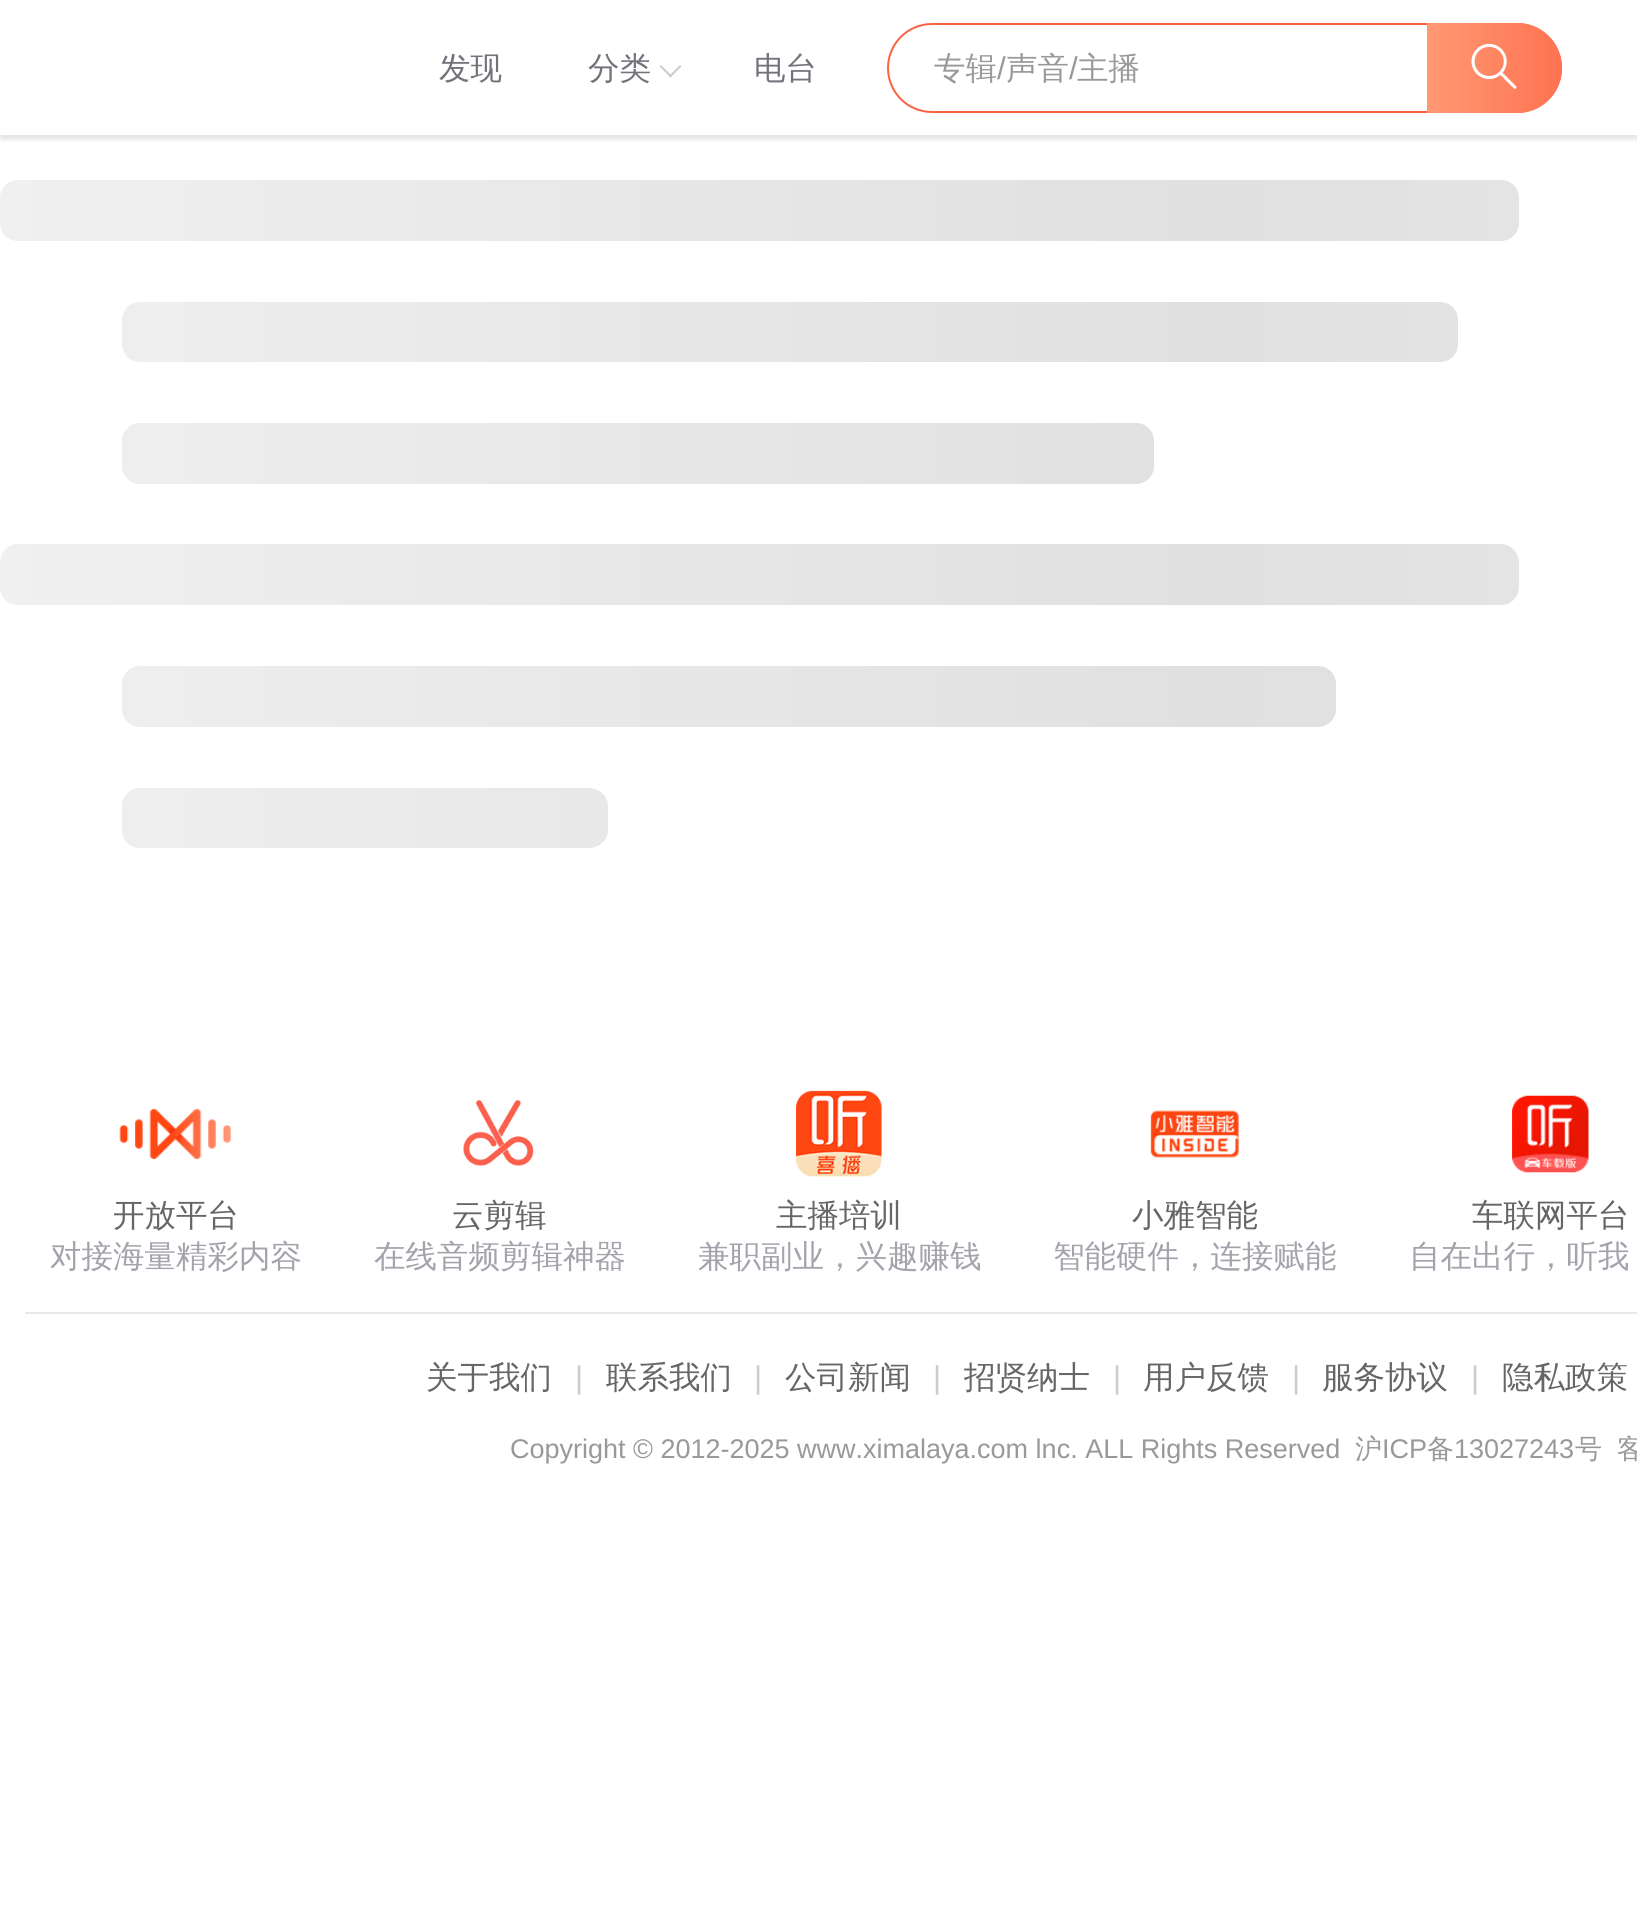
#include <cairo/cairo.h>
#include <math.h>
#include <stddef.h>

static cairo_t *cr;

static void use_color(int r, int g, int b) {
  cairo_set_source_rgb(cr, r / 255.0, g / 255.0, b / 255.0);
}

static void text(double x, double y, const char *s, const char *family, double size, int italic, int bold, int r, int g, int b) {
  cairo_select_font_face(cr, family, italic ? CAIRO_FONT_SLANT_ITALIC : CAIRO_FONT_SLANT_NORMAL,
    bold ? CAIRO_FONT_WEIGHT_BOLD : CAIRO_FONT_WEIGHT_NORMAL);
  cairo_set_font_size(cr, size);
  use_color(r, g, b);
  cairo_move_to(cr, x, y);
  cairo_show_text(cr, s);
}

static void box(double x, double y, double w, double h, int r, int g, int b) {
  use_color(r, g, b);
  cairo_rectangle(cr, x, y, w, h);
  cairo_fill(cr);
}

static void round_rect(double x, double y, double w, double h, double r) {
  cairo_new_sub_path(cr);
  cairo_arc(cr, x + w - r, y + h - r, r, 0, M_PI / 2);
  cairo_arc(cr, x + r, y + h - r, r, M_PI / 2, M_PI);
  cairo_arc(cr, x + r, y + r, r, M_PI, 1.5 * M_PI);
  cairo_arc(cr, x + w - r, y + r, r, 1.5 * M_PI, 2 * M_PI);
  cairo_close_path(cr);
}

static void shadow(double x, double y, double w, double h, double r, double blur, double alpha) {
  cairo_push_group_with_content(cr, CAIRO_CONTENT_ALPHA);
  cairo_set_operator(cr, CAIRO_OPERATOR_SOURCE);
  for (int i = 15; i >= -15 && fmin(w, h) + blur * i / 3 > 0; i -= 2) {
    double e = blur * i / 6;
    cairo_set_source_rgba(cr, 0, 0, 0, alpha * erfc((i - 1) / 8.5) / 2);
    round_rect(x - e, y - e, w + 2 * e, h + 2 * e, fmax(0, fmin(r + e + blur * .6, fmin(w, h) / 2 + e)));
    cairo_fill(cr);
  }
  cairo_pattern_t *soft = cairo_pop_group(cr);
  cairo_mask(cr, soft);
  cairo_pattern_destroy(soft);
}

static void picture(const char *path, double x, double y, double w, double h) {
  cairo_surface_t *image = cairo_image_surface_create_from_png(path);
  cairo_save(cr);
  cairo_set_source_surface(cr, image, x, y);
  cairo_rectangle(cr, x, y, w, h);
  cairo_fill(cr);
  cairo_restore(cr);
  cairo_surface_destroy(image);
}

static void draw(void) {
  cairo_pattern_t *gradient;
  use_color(255, 255, 255);
  cairo_paint(cr);
  cairo_save(cr);
  cairo_rectangle(cr, 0, 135, 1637, 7);
  cairo_clip(cr);
  use_color(0, 0, 0);
  shadow(0, 5, 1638, 135, 0, 2, 0.1);
  cairo_restore(cr);
  use_color(204, 204, 204);
  cairo_new_path(cr);
  cairo_move_to(cr, 681.5, 66.5);
  cairo_line_to(cr, 670.5, 77.5);
  cairo_line_to(cr, 669, 76);
  cairo_line_to(cr, 680, 65);
  cairo_close_path(cr);
  cairo_fill(cr);
  cairo_new_path(cr);
  cairo_move_to(cr, 672, 76);
  cairo_line_to(cr, 670.5, 77.5);
  cairo_line_to(cr, 659.5, 66.5);
  cairo_line_to(cr, 661, 65);
  cairo_close_path(cr);
  cairo_fill(cr);
  round_rect(888, 24, 673, 88, 44);
  use_color(248, 100, 66);
  cairo_stroke(cr);
  gradient = cairo_pattern_create_linear(1427, 68, 1562, 68);
  cairo_pattern_add_color_stop_rgba(gradient, 0.01, 1, 0.6, 0.451, 1);
  cairo_pattern_add_color_stop_rgba(gradient, 0.99, 1, 0.447, 0.318, 1);
  cairo_set_source(cr, gradient);
  cairo_pattern_destroy(gradient);
  cairo_new_path(cr);
  cairo_move_to(cr, 1427, 23);
  cairo_line_to(cr, 1517, 23);
  cairo_curve_to(cr, 1542, 23, 1562, 43, 1562, 68);
  cairo_curve_to(cr, 1562, 93, 1542, 113, 1517, 113);
  cairo_line_to(cr, 1427, 113);
  cairo_close_path(cr);
  cairo_fill(cr);
  picture("img_01.png", 1471, 43, 46, 46);
  gradient = cairo_pattern_create_linear(0, 180, 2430, 180);
  cairo_pattern_add_color_stop_rgba(gradient, 0, 0.941, 0.941, 0.941, 1);
  cairo_pattern_add_color_stop_rgba(gradient, 0.5, 0.878, 0.878, 0.878, 1);
  cairo_pattern_add_color_stop_rgba(gradient, 1, 0.941, 0.941, 0.941, 1);
  cairo_set_source(cr, gradient);
  cairo_pattern_destroy(gradient);
  cairo_set_fill_rule(cr, CAIRO_FILL_RULE_EVEN_ODD);
  cairo_new_path(cr);
  cairo_move_to(cr, 18, 180);
  cairo_curve_to(cr, 8, 180, 0, 188, 0, 198);
  cairo_line_to(cr, 0, 223);
  cairo_curve_to(cr, 0, 233, 8, 241, 18, 241);
  cairo_line_to(cr, 1501, 241);
  cairo_curve_to(cr, 1511, 241, 1519, 233, 1519, 223);
  cairo_line_to(cr, 1519, 198);
  cairo_curve_to(cr, 1519, 188, 1511, 180, 1501, 180);
  cairo_close_path(cr);
  cairo_move_to(cr, 18, 544);
  cairo_curve_to(cr, 8, 544, 0, 553, 0, 563);
  cairo_line_to(cr, 0, 587);
  cairo_curve_to(cr, 0, 597, 8, 605, 18, 605);
  cairo_line_to(cr, 1501, 605);
  cairo_curve_to(cr, 1511, 605, 1519, 597, 1519, 587);
  cairo_line_to(cr, 1519, 563);
  cairo_curve_to(cr, 1519, 553, 1511, 544, 1501, 544);
  cairo_close_path(cr);
  cairo_move_to(cr, 140, 302);
  cairo_curve_to(cr, 130, 302, 122, 310, 122, 320);
  cairo_line_to(cr, 122, 344);
  cairo_curve_to(cr, 122, 354, 130, 362, 140, 362);
  cairo_line_to(cr, 1440, 362);
  cairo_curve_to(cr, 1450, 362, 1458, 354, 1458, 344);
  cairo_line_to(cr, 1458, 320);
  cairo_curve_to(cr, 1458, 310, 1450, 302, 1440, 302);
  cairo_close_path(cr);
  cairo_move_to(cr, 140, 423);
  cairo_curve_to(cr, 130, 423, 122, 431, 122, 441);
  cairo_line_to(cr, 122, 466);
  cairo_curve_to(cr, 122, 476, 130, 484, 140, 484);
  cairo_line_to(cr, 1136, 484);
  cairo_curve_to(cr, 1146, 484, 1154, 476, 1154, 466);
  cairo_line_to(cr, 1154, 441);
  cairo_curve_to(cr, 1154, 431, 1146, 423, 1136, 423);
  cairo_close_path(cr);
  cairo_move_to(cr, 140, 666);
  cairo_curve_to(cr, 130, 666, 122, 674, 122, 684);
  cairo_line_to(cr, 122, 709);
  cairo_curve_to(cr, 122, 719, 130, 727, 140, 727);
  cairo_line_to(cr, 1318, 727);
  cairo_curve_to(cr, 1328, 727, 1336, 719, 1336, 709);
  cairo_line_to(cr, 1336, 684);
  cairo_curve_to(cr, 1336, 674, 1328, 666, 1318, 666);
  cairo_close_path(cr);
  cairo_move_to(cr, 140, 788);
  cairo_curve_to(cr, 130, 788, 122, 796, 122, 806);
  cairo_line_to(cr, 122, 830);
  cairo_curve_to(cr, 122, 840, 130, 848, 140, 848);
  cairo_line_to(cr, 589, 848);
  cairo_curve_to(cr, 599, 848, 608, 840, 608, 830);
  cairo_line_to(cr, 608, 806);
  cairo_curve_to(cr, 608, 796, 599, 788, 589, 788);
  cairo_close_path(cr);
  cairo_fill(cr);
  box(25, 1312, 1612, 2, 232, 232, 232);
  picture("img_02.png", 119, 1108, 113, 52);
  picture("img_03.png", 463, 1100, 71, 66);
  picture("img_04.png", 796, 1090, 86, 87);
  picture("img_05.png", 1150, 1110, 89, 48);
  picture("img_06.png", 1512, 1095, 77, 78);
  text(439, 79, "发现", "WenQuanYi Zen Hei Medium", 31.5, 0, 0, 114, 114, 123);
  text(588, 79, "分类", "WenQuanYi Zen Hei Medium", 31.5, 0, 0, 114, 114, 123);
  text(754, 79, "电台", "WenQuanYi Zen Hei Medium", 31.5, 0, 0, 114, 114, 123);
  text(934, 79, "专辑", "WenQuanYi Zen Hei Medium", 31.5, 0, 0, 153, 153, 153);
  text(997, 79, "/", "Liberation Sans", 31.5, 0, 0, 153, 153, 153);
  text(1006, 79, "声音", "WenQuanYi Zen Hei Medium", 31.5, 0, 0, 153, 153, 153);
  text(1069, 79, "/", "Liberation Sans", 31.5, 0, 0, 153, 153, 153);
  text(1077, 79, "主播", "WenQuanYi Zen Hei Medium", 31.5, 0, 0, 153, 153, 153);
  text(113, 1226, "开放平台", "WenQuanYi Zen Hei Medium", 31.5, 0, 0, 102, 102, 102);
  text(50, 1267, "对接海量精彩内容", "WenQuanYi Zen Hei Medium", 31.5, 0, 0, 163, 163, 172);
  text(452, 1226, "云剪辑", "WenQuanYi Zen Hei Medium", 31.5, 0, 0, 102, 102, 102);
  text(374, 1267, "在线音频剪辑神器", "WenQuanYi Zen Hei Medium", 31.5, 0, 0, 163, 163, 172);
  text(776, 1226, "主播培训", "WenQuanYi Zen Hei Medium", 31.5, 0, 0, 102, 102, 102);
  text(698, 1267, "兼职副业，兴趣赚钱", "WenQuanYi Zen Hei Medium", 31.5, 0, 0, 163, 163, 172);
  text(1132, 1226, "小雅智能", "WenQuanYi Zen Hei Medium", 31.5, 0, 0, 102, 102, 102);
  text(1053, 1267, "智能硬件，连接赋能", "WenQuanYi Zen Hei Medium", 31.5, 0, 0, 163, 163, 172);
  text(1472, 1226, "车联网平台", "WenQuanYi Zen Hei Medium", 31.5, 0, 0, 102, 102, 102);
  text(1409, 1267, "自在出行，听我", "WenQuanYi Zen Hei Medium", 31.5, 0, 0, 163, 163, 172);
  text(426, 1388, "关于我们", "WenQuanYi Zen Hei Medium", 31.5, 0, 0, 102, 102, 102);
  text(575, 1388, "|", "Liberation Sans", 31.5, 0, 0, 204, 204, 204);
  text(606, 1388, "联系我们", "WenQuanYi Zen Hei Medium", 31.5, 0, 0, 102, 102, 102);
  text(754, 1388, "|", "Liberation Sans", 31.5, 0, 0, 204, 204, 204);
  text(785, 1388, "公司新闻", "WenQuanYi Zen Hei Medium", 31.5, 0, 0, 102, 102, 102);
  text(933, 1388, "|", "Liberation Sans", 31.5, 0, 0, 204, 204, 204);
  text(964, 1388, "招贤纳士", "WenQuanYi Zen Hei Medium", 31.5, 0, 0, 102, 102, 102);
  text(1113, 1388, "|", "Liberation Sans", 31.5, 0, 0, 204, 204, 204);
  text(1143, 1388, "用户反馈", "WenQuanYi Zen Hei Medium", 31.5, 0, 0, 102, 102, 102);
  text(1292, 1388, "|", "Liberation Sans", 31.5, 0, 0, 204, 204, 204);
  text(1322, 1388, "服务协议", "WenQuanYi Zen Hei Medium", 31.5, 0, 0, 102, 102, 102);
  text(1471, 1388, "|", "Liberation Sans", 31.5, 0, 0, 204, 204, 204);
  text(1502, 1388, "隐私政策", "WenQuanYi Zen Hei Medium", 31.5, 0, 0, 102, 102, 102);
  text(510, 1458, "Copyright © 2012-2025 www.ximalaya.com lnc. ALL Rights Reserved", "Liberation Sans", 27, 0, 0, 153, 153, 153);
  text(1355, 1458, "沪", "WenQuanYi Zen Hei Medium", 27, 0, 0, 153, 153, 153);
  text(1382, 1458, "ICP", "Liberation Sans", 27, 0, 0, 153, 153, 153);
  text(1427, 1458, "备", "WenQuanYi Zen Hei Medium", 27, 0, 0, 153, 153, 153);
  text(1454, 1458, "13027243", "Liberation Sans", 27, 0, 0, 153, 153, 153);
  text(1575, 1458, "号", "WenQuanYi Zen Hei Medium", 27, 0, 0, 153, 153, 153);
  text(1617, 1458, "客", "WenQuanYi Zen Hei Medium", 27, 0, 0, 153, 153, 153);
}

int main(void) {
  cairo_surface_t *surface = cairo_image_surface_create(CAIRO_FORMAT_RGB24, 1637, 1913);
  cr = cairo_create(surface);
  cairo_font_options_t *options = cairo_font_options_create();
  cairo_font_options_set_hint_metrics(options, CAIRO_HINT_METRICS_OFF);
  cairo_font_options_set_hint_style(options, CAIRO_HINT_STYLE_NONE);
  cairo_set_font_options(cr, options);
  cairo_set_miter_limit(cr, 4);
  draw();
  cairo_surface_write_to_png(surface, "out.png");
  cairo_font_options_destroy(options);
  cairo_destroy(cr);
  cairo_surface_destroy(surface);
  return 0;
}
